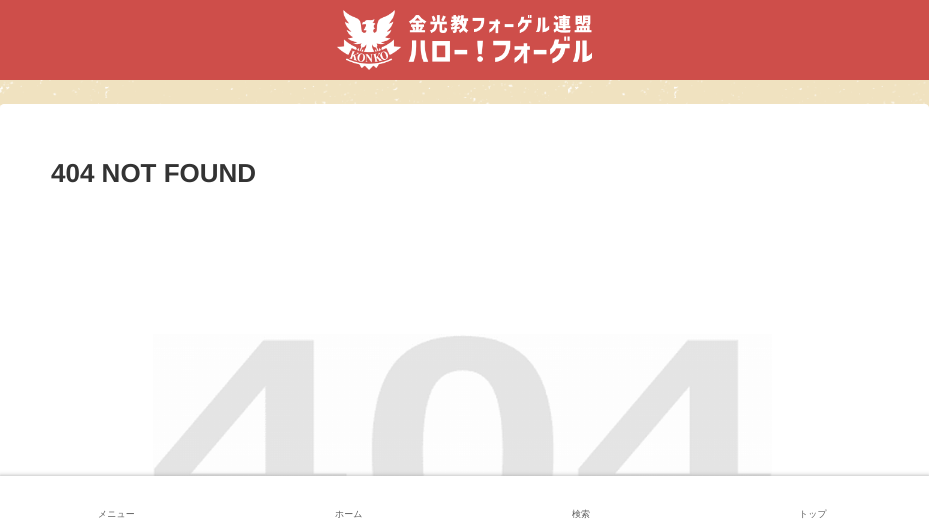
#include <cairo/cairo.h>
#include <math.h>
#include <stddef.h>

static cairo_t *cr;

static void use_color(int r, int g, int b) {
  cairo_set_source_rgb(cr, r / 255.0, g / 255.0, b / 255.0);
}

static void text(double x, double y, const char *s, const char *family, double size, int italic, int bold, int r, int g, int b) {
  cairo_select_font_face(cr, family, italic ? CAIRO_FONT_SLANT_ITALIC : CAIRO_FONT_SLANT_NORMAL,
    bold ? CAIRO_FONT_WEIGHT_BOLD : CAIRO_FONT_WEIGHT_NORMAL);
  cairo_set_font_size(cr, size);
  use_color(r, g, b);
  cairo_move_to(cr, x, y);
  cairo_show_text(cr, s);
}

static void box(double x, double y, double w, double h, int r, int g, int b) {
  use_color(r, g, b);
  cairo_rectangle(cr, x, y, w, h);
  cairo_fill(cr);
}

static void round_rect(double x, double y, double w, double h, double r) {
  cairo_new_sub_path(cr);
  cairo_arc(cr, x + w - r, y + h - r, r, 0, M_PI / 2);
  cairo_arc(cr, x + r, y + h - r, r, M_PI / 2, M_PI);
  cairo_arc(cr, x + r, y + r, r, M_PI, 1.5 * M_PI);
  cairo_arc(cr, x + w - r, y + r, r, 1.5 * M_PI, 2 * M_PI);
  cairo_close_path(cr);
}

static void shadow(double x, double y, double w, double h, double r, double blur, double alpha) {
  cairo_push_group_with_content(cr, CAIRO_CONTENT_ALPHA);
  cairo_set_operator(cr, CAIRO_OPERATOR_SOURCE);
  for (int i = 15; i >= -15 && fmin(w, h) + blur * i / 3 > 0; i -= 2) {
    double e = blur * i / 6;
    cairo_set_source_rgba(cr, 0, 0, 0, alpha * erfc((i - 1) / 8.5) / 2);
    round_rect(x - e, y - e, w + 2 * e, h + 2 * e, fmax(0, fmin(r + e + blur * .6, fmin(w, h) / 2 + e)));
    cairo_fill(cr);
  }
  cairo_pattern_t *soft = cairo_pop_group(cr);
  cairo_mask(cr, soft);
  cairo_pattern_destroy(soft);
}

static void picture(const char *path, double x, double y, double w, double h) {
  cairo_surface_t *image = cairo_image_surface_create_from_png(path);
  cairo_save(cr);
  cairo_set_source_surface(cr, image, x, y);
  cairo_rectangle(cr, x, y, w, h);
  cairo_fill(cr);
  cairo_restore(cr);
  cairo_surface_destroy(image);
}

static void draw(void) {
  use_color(240, 226, 192);
  cairo_paint(cr);
  picture("img_01.png", 0, 80, 926, 28);
  box(0, 0, 929, 80, 206, 78, 74);
  picture("img_02.png", 337, 10, 255, 60);
  use_color(255, 255, 255);
  round_rect(0, 104, 929, 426, 4);
  cairo_fill(cr);
  picture("img_03.png", 153, 334, 619, 142);
  use_color(169, 169, 169);
  shadow(0, 476, 929, 50, 0, 2.5, 1);
  box(0, 476, 929, 50, 255, 255, 255);
  text(51, 182, "404 NOT FOUND", "Liberation Sans", 26, 0, 1, 51, 51, 51);
  text(98, 517, "メニュー", "WenQuanYi Zen Hei Medium", 9, 0, 0, 92, 92, 92);
  text(335, 517, "ホーム", "WenQuanYi Zen Hei Medium", 9, 0, 0, 92, 92, 92);
  text(572, 517, "検索", "WenQuanYi Zen Hei Medium", 9, 0, 0, 92, 92, 92);
  text(799, 517, "トップ", "WenQuanYi Zen Hei Medium", 9, 0, 0, 92, 92, 92);
}

int main(void) {
  cairo_surface_t *surface = cairo_image_surface_create(CAIRO_FORMAT_RGB24, 929, 526);
  cr = cairo_create(surface);
  cairo_font_options_t *options = cairo_font_options_create();
  cairo_font_options_set_hint_metrics(options, CAIRO_HINT_METRICS_OFF);
  cairo_font_options_set_hint_style(options, CAIRO_HINT_STYLE_NONE);
  cairo_set_font_options(cr, options);
  cairo_set_miter_limit(cr, 4);
  draw();
  cairo_surface_write_to_png(surface, "out.png");
  cairo_font_options_destroy(options);
  cairo_destroy(cr);
  cairo_surface_destroy(surface);
  return 0;
}
